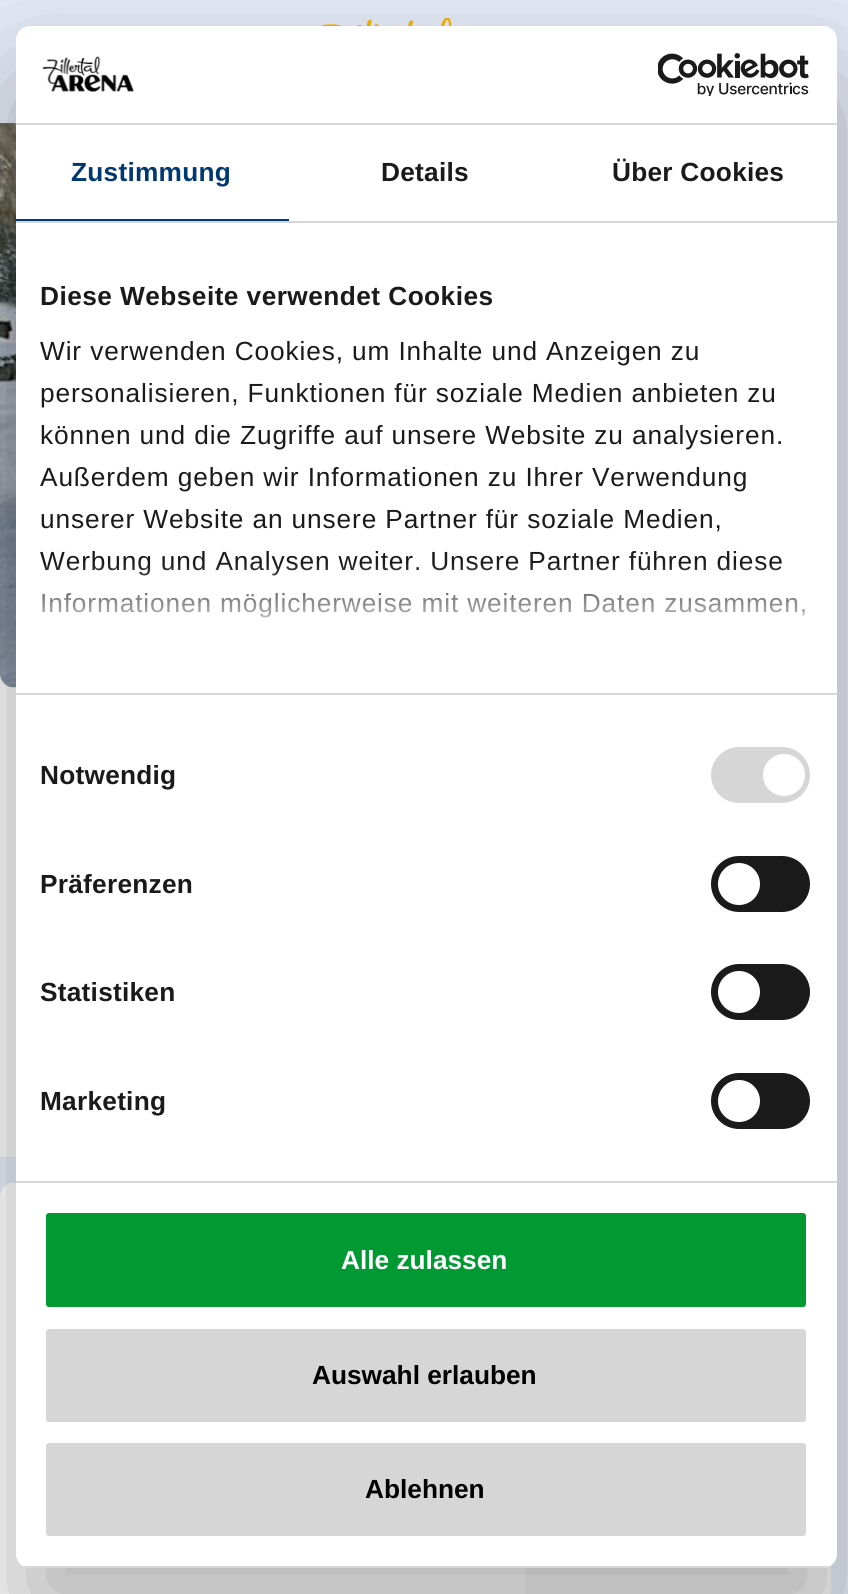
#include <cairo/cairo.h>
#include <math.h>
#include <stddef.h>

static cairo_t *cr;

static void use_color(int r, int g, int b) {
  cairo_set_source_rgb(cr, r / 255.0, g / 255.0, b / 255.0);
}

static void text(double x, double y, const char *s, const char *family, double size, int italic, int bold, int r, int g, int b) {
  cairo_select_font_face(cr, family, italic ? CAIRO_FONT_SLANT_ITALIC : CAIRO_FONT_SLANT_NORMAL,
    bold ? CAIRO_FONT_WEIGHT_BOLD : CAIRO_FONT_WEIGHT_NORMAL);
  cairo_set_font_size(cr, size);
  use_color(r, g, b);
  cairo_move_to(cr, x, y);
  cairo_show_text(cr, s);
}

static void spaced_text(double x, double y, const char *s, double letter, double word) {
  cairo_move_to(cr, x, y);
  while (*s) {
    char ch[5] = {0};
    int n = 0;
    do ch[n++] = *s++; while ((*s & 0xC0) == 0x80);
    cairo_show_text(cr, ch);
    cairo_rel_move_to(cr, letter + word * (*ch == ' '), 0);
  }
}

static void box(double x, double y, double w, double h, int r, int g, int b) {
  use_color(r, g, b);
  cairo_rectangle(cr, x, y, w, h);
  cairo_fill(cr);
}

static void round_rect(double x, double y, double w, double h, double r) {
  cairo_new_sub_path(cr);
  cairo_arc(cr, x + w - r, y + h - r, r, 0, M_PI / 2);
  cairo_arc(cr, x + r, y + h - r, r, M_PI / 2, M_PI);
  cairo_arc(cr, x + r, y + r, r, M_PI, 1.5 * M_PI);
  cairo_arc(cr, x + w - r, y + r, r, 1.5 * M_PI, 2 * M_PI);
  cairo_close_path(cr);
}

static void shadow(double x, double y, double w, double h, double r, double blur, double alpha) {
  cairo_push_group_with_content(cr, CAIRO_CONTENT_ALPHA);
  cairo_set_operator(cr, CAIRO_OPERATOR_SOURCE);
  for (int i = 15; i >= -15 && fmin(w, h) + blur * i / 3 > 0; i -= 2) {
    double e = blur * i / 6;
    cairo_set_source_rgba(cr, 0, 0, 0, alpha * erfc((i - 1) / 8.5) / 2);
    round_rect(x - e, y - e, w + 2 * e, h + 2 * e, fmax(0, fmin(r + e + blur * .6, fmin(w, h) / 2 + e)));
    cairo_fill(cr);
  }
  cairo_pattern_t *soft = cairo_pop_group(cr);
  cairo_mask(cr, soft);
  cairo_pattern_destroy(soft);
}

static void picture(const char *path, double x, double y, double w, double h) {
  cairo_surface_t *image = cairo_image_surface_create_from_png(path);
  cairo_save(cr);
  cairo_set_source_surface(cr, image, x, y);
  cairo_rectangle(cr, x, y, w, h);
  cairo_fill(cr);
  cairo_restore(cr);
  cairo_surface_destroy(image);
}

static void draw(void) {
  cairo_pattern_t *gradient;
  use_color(228, 234, 246);
  cairo_paint(cr);
  picture("img_01.png", 322, 18, 130, 8);
  box(0, 674, 16, 483, 247, 247, 247);
  picture("img_02.png", 0, 123, 16, 565);
  box(525, 1565, 306, 29, 247, 247, 247);
  picture("img_03.png", 0, 1183, 525, 411);
  use_color(0, 0, 0);
  shadow(16, 82, 821, 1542, 14, 59.5, 0.3);
  use_color(255, 255, 255);
  round_rect(16, 26, 821, 1542, 14);
  cairo_fill(cr);
  box(16, 123, 821, 2, 214, 214, 214);
  picture("img_04.png", 42, 56, 92, 36);
  picture("img_05.png", 658, 53, 151, 43);
  box(16, 221, 821, 2, 214, 214, 214);
  box(16, 219, 273, 2, 0, 57, 114);
  box(16, 693, 821, 2, 214, 214, 214);
  box(16, 1181, 821, 2, 214, 214, 214);
  round_rect(711, 747, 99, 56, 28);
  cairo_fill(cr);
  use_color(255, 255, 255);
  cairo_arc(cr, 784, 775, 21, 0, 2 * M_PI);
  cairo_fill(cr);
  use_color(26, 26, 26);
  round_rect(711, 856, 99, 56, 28);
  cairo_fill(cr);
  use_color(255, 255, 255);
  cairo_arc(cr, 739, 884, 21, 0, 2 * M_PI);
  cairo_fill(cr);
  use_color(26, 26, 26);
  round_rect(711, 964, 99, 56, 28);
  cairo_fill(cr);
  use_color(255, 255, 255);
  cairo_arc(cr, 739, 992, 21, 0, 2 * M_PI);
  cairo_fill(cr);
  use_color(26, 26, 26);
  round_rect(711, 1073, 99, 56, 28);
  cairo_fill(cr);
  use_color(255, 255, 255);
  cairo_arc(cr, 739, 1101, 21, 0, 2 * M_PI);
  cairo_fill(cr);
  cairo_save(cr);
  round_rect(16, 26, 821, 1542, 14);
  cairo_clip(cr);
  box(16, 1566, 821, 2, 214, 214, 214);
  cairo_restore(cr);
  use_color(0, 153, 50);
  round_rect(44, 1211, 764, 98, 5);
  cairo_fill_preserve(cr);
  use_color(255, 255, 255);
  cairo_set_line_width(cr, 4);
  cairo_stroke(cr);
  use_color(214, 214, 214);
  round_rect(44, 1327, 764, 97, 5);
  cairo_fill_preserve(cr);
  use_color(255, 255, 255);
  cairo_stroke(cr);
  use_color(214, 214, 214);
  round_rect(44, 1441, 764, 97, 5);
  cairo_fill_preserve(cr);
  use_color(255, 255, 255);
  cairo_stroke(cr);
  cairo_select_font_face(cr, "Liberation Sans", CAIRO_FONT_SLANT_NORMAL, CAIRO_FONT_WEIGHT_BOLD);
  cairo_set_font_size(cr, 26.25);
  use_color(0, 57, 114);
  spaced_text(71, 181, "Zustimmung", 0.25, 0);
  use_color(26, 26, 26);
  spaced_text(381, 181, "Details", 0.25, 0);
  spaced_text(612, 181, "Über Cookies", 0.25, 0);
  spaced_text(40, 305, "Diese Webseite verwendet Cookies", 0.45, 0);
  cairo_select_font_face(cr, "Liberation Sans", CAIRO_FONT_SLANT_NORMAL, CAIRO_FONT_WEIGHT_NORMAL);
  spaced_text(40, 360, "Wir verwenden Cookies, um Inhalte und Anzeigen zu", 0.88, 0);
  spaced_text(40, 402, "personalisieren, Funktionen für soziale Medien anbieten zu", 0.88, 0);
  spaced_text(40, 444, "können und die Zugriffe auf unsere Website zu analysieren.", 0.88, 0);
  spaced_text(40, 486, "Außerdem geben wir Informationen zu Ihrer Verwendung", 0.88, 0);
  spaced_text(40, 528, "unserer Website an unsere Partner für soziale Medien,", 0.88, 0);
  spaced_text(40, 570, "Werbung und Analysen weiter. Unsere Partner führen diese", 0.88, 0);
  spaced_text(40, 612, "Informationen möglicherweise mit weiteren Daten zusammen,", 0.88, 0);
  gradient = cairo_pattern_create_linear(414, 693, 414, 562);
  cairo_pattern_add_color_stop_rgba(gradient, 0, 1, 1, 1, 1);
  cairo_pattern_add_color_stop_rgba(gradient, 0.5, 1, 1, 1, 0.8);
  cairo_pattern_add_color_stop_rgba(gradient, 1, 1, 1, 1, 0);
  cairo_set_source(cr, gradient);
  cairo_pattern_destroy(gradient);
  cairo_rectangle(cr, 42, 564, 763, 54);
  cairo_fill(cr);
  cairo_select_font_face(cr, "Liberation Sans", CAIRO_FONT_SLANT_NORMAL, CAIRO_FONT_WEIGHT_BOLD);
  use_color(26, 26, 26);
  spaced_text(40, 784, "Notwendig", 0.25, 0);
  spaced_text(40, 893, "Präferenzen", 0.25, 0);
  spaced_text(40, 1001, "Statistiken", 0.25, 0);
  spaced_text(40, 1110, "Marketing", 0.25, 0);
  text(341, 1269, "Alle zulassen", "Liberation Sans", 26.25, 0, 1, 255, 255, 255);
  text(312, 1384, "Auswahl erlauben", "Liberation Sans", 26.25, 0, 1, 0, 0, 0);
  text(365, 1498, "Ablehnen", "Liberation Sans", 26.25, 0, 1, 0, 0, 0);
}

int main(void) {
  cairo_surface_t *surface = cairo_image_surface_create(CAIRO_FORMAT_RGB24, 848, 1594);
  cr = cairo_create(surface);
  cairo_font_options_t *options = cairo_font_options_create();
  cairo_font_options_set_hint_metrics(options, CAIRO_HINT_METRICS_OFF);
  cairo_font_options_set_hint_style(options, CAIRO_HINT_STYLE_NONE);
  cairo_set_font_options(cr, options);
  cairo_set_miter_limit(cr, 4);
  draw();
  cairo_surface_write_to_png(surface, "out.png");
  cairo_font_options_destroy(options);
  cairo_destroy(cr);
  cairo_surface_destroy(surface);
  return 0;
}
